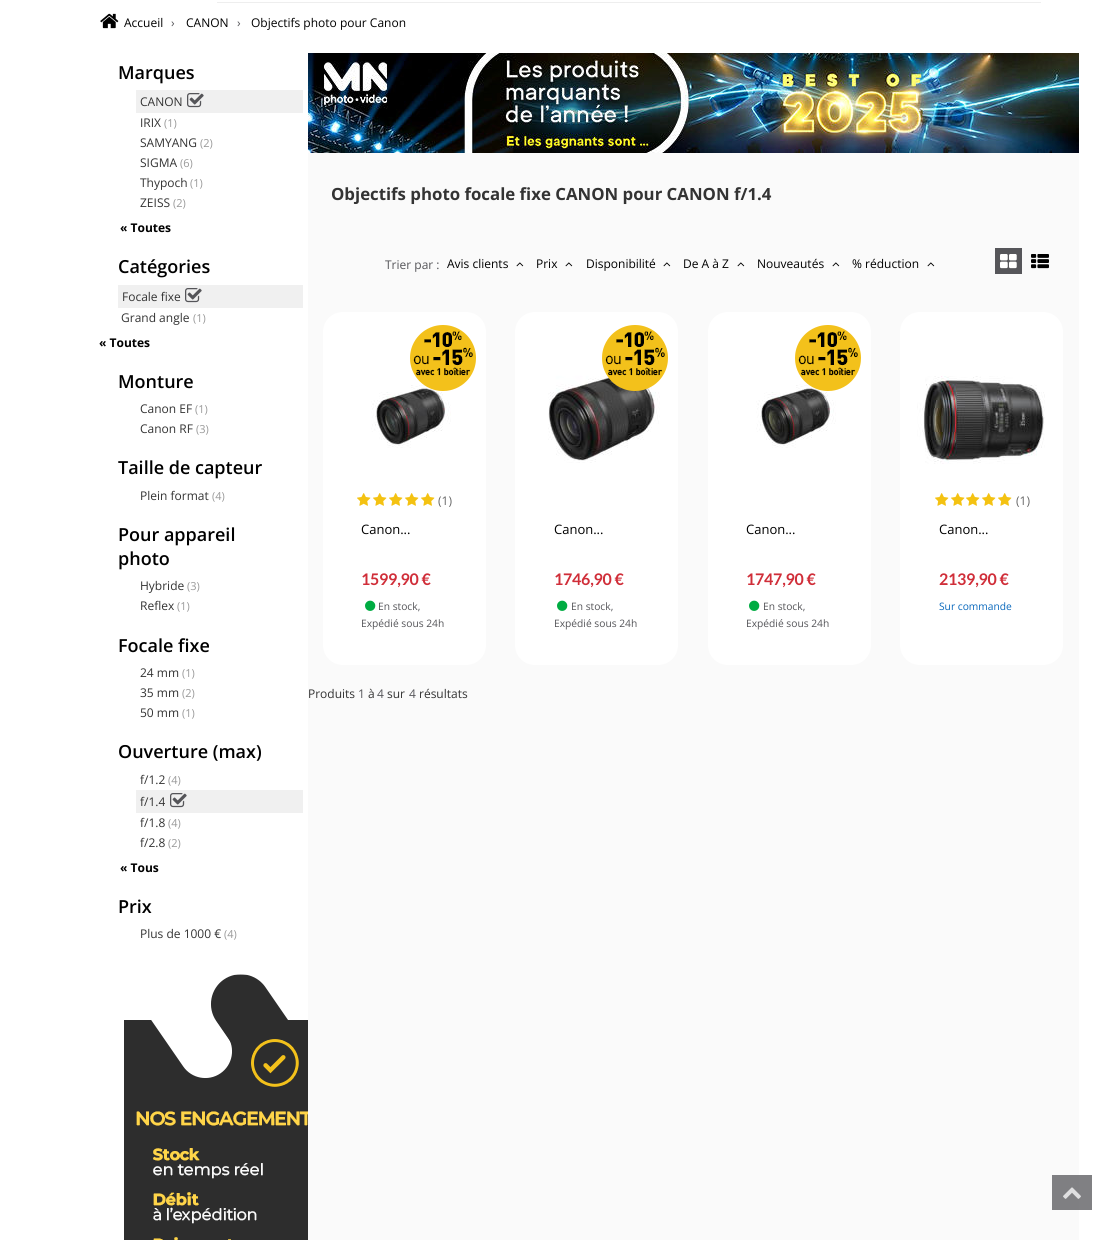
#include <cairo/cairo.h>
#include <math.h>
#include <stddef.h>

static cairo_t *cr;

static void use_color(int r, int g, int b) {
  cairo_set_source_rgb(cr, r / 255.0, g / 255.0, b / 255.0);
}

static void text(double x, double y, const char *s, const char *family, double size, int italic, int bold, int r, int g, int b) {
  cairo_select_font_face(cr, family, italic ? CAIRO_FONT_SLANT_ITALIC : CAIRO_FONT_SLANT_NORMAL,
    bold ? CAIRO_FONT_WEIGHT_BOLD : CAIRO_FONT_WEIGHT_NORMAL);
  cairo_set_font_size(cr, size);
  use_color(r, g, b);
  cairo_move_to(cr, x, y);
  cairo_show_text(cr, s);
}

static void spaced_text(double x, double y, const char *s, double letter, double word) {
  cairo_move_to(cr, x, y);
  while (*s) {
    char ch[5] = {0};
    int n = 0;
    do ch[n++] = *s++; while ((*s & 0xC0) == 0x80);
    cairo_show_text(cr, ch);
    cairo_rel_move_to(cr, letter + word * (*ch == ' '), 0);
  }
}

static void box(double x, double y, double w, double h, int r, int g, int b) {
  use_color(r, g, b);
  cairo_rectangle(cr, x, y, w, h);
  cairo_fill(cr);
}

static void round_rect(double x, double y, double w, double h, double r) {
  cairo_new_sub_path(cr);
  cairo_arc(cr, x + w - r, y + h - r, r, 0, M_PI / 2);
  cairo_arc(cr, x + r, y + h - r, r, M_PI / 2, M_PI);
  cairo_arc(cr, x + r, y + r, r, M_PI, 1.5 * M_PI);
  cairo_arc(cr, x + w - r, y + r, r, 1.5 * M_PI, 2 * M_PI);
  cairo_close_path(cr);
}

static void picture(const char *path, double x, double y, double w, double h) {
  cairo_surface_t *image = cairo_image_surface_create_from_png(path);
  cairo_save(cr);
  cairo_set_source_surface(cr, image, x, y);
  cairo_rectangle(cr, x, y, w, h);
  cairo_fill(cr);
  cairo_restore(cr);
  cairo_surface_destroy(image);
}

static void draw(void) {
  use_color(255, 255, 255);
  cairo_paint(cr);
  box(1079, 1175, 13, 35, 128, 128, 131);
  box(217, 2, 824, 1, 238, 238, 238);
  picture("img_01.png", 100, 13, 19, 16);
  box(136, 90, 167, 23, 240, 240, 240);
  picture("img_02.png", 187, 93, 17, 15);
  box(118, 285, 185, 23, 240, 240, 240);
  picture("img_02.png", 185, 288, 17, 15);
  box(136, 790, 167, 23, 240, 240, 240);
  picture("img_02.png", 170, 793, 17, 15);
  picture("img_03.png", 124, 974, 184, 266);
  box(308, 153, 771, 1087, 250, 250, 250);
  box(1052, 1175, 27, 35, 127, 127, 130);
  picture("img_04.png", 308, 53, 771, 100);
  picture("img_05.png", 516, 262, 8, 5);
  picture("img_05.png", 565, 262, 8, 5);
  picture("img_05.png", 663, 262, 8, 5);
  picture("img_05.png", 737, 262, 8, 5);
  picture("img_05.png", 832, 262, 8, 5);
  picture("img_05.png", 927, 262, 8, 5);
  box(995, 248, 27, 26, 86, 86, 90);
  picture("img_06.png", 1000, 254, 17, 15);
  picture("img_07.png", 1031, 254, 18, 15);
  use_color(255, 255, 255);
  round_rect(323, 312, 163, 353, 20);
  cairo_fill(cr);
  picture("img_09.png", 371, 385, 80, 63);
  picture("img_08.png", 410, 325, 66, 66);
  picture("img_10.png", 357, 493, 14, 13);
  picture("img_10.png", 373, 493, 14, 13);
  picture("img_10.png", 389, 493, 14, 13);
  picture("img_10.png", 405, 493, 14, 13);
  picture("img_10.png", 421, 493, 14, 13);
  picture("img_11.png", 365, 600, 11, 11);
  round_rect(515, 312, 163, 353, 20);
  cairo_fill(cr);
  picture("img_13.png", 548, 368, 112, 95);
  picture("img_12.png", 602, 325, 66, 66);
  picture("img_11.png", 557, 600, 11, 11);
  round_rect(708, 312, 163, 353, 20);
  cairo_fill(cr);
  picture("img_15.png", 756, 384, 80, 64);
  picture("img_14.png", 795, 325, 66, 66);
  picture("img_11.png", 749, 600, 11, 11);
  round_rect(900, 312, 163, 353, 20);
  cairo_fill(cr);
  picture("img_16.png", 917, 376, 128, 88);
  picture("img_10.png", 935, 493, 14, 13);
  picture("img_10.png", 951, 493, 14, 13);
  picture("img_10.png", 966, 493, 14, 13);
  picture("img_10.png", 982, 493, 14, 13);
  picture("img_10.png", 998, 493, 14, 13);
  picture("img_17.png", 1063, 1187, 18, 12);
  text(124, 27, "Accueil", "Open Sans", 12, 0, 0, 0, 0, 0);
  text(171, 27, "›", "Open Sans", 12, 0, 0, 85, 85, 89);
  text(186, 27, "CANON", "Open Sans", 12, 0, 0, 0, 0, 0);
  text(237, 27, "›", "Open Sans", 12, 0, 0, 85, 85, 89);
  text(251, 27, "Objectifs photo pour Canon", "Open Sans", 12, 0, 0, 0, 0, 0);
  text(118, 79, "Marques", "Open Sans SemiBold", 18, 0, 0, 0, 0, 0);
  text(140, 106, "CANON", "Open Sans", 12, 0, 0, 51, 51, 51);
  text(140, 127, "IRIX", "Open Sans", 12, 0, 0, 51, 51, 51);
  text(164, 127, "(1)", "Open Sans", 11, 0, 0, 153, 153, 153);
  text(140, 147, "SAMYANG", "Open Sans", 12, 0, 0, 51, 51, 51);
  text(200, 147, "(2)", "Open Sans", 11, 0, 0, 153, 153, 153);
  text(140, 167, "SIGMA", "Open Sans", 12, 0, 0, 51, 51, 51);
  text(180, 167, "(6)", "Open Sans", 11, 0, 0, 153, 153, 153);
  text(140, 187, "Thypoch", "Open Sans", 12, 0, 0, 51, 51, 51);
  text(190, 187, "(1)", "Open Sans", 11, 0, 0, 153, 153, 153);
  text(140, 207, "ZEISS", "Open Sans", 12, 0, 0, 51, 51, 51);
  text(173, 207, "(2)", "Open Sans", 11, 0, 0, 153, 153, 153);
  text(120, 232, "« Toutes", "Open Sans", 12, 0, 1, 0, 0, 0);
  text(118, 273, "Catégories", "Open Sans SemiBold", 18, 0, 0, 0, 0, 0);
  text(122, 301, "Focale fixe", "Open Sans", 12, 0, 0, 51, 51, 51);
  text(121, 322, "Grand angle", "Open Sans", 12, 0, 0, 51, 51, 51);
  text(193, 322, "(1)", "Open Sans", 11, 0, 0, 153, 153, 153);
  text(99, 347, "« Toutes", "Open Sans", 12, 0, 1, 0, 0, 0);
  text(118, 388, "Monture", "Open Sans SemiBold", 18, 0, 0, 0, 0, 0);
  text(140, 413, "Canon EF", "Open Sans", 12, 0, 0, 51, 51, 51);
  text(195, 413, "(1)", "Open Sans", 11, 0, 0, 153, 153, 153);
  text(140, 433, "Canon RF", "Open Sans", 12, 0, 0, 51, 51, 51);
  text(196, 433, "(3)", "Open Sans", 11, 0, 0, 153, 153, 153);
  text(118, 474, "Taille de capteur", "Open Sans SemiBold", 18, 0, 0, 0, 0, 0);
  text(140, 500, "Plein format", "Open Sans", 12, 0, 0, 51, 51, 51);
  text(212, 500, "(4)", "Open Sans", 11, 0, 0, 153, 153, 153);
  text(118, 541, "Pour appareil", "Open Sans SemiBold", 18, 0, 0, 0, 0, 0);
  text(118, 565, "photo", "Open Sans SemiBold", 18, 0, 0, 0, 0, 0);
  text(140, 590, "Hybride", "Open Sans", 12, 0, 0, 51, 51, 51);
  text(187, 590, "(3)", "Open Sans", 11, 0, 0, 153, 153, 153);
  text(140, 610, "Reflex", "Open Sans", 12, 0, 0, 51, 51, 51);
  text(177, 610, "(1)", "Open Sans", 11, 0, 0, 153, 153, 153);
  text(118, 652, "Focale fixe", "Open Sans SemiBold", 18, 0, 0, 0, 0, 0);
  text(140, 677, "24 mm", "Open Sans", 12, 0, 0, 51, 51, 51);
  text(182, 677, "(1)", "Open Sans", 11, 0, 0, 153, 153, 153);
  text(140, 697, "35 mm", "Open Sans", 12, 0, 0, 51, 51, 51);
  text(182, 697, "(2)", "Open Sans", 11, 0, 0, 153, 153, 153);
  text(140, 717, "50 mm", "Open Sans", 12, 0, 0, 51, 51, 51);
  text(182, 717, "(1)", "Open Sans", 11, 0, 0, 153, 153, 153);
  text(118, 758, "Ouverture (max)", "Open Sans SemiBold", 18, 0, 0, 0, 0, 0);
  text(140, 784, "f/1.2", "Open Sans", 12, 0, 0, 51, 51, 51);
  text(168, 784, "(4)", "Open Sans", 11, 0, 0, 153, 153, 153);
  text(140, 806, "f/1.4", "Open Sans", 12, 0, 0, 51, 51, 51);
  text(140, 827, "f/1.8", "Open Sans", 12, 0, 0, 51, 51, 51);
  text(168, 827, "(4)", "Open Sans", 11, 0, 0, 153, 153, 153);
  text(140, 847, "f/2.8", "Open Sans", 12, 0, 0, 51, 51, 51);
  text(168, 847, "(2)", "Open Sans", 11, 0, 0, 153, 153, 153);
  text(120, 872, "« Tous", "Open Sans", 12, 0, 1, 0, 0, 0);
  text(118, 913, "Prix", "Open Sans SemiBold", 18, 0, 0, 0, 0, 0);
  text(140, 938, "Plus de 1000 €", "Open Sans", 12, 0, 0, 51, 51, 51);
  text(224, 938, "(4)", "Open Sans", 11, 0, 0, 153, 153, 153);
  text(331, 200, "Objectifs photo focale fixe CANON pour CANON f/1.4", "Open Sans", 16.8, 0, 1, 51, 51, 51);
  text(385, 269, "Trier par :", "Open Sans", 12, 0, 0, 85, 85, 89);
  text(447, 268, "Avis clients", "Open Sans", 12, 0, 0, 0, 0, 0);
  text(536, 268, "Prix", "Open Sans", 12, 0, 0, 0, 0, 0);
  text(586, 268, "Disponibilité", "Open Sans", 12, 0, 0, 0, 0, 0);
  text(683, 268, "De A à Z", "Open Sans", 12, 0, 0, 0, 0, 0);
  text(757, 268, "Nouveautés", "Open Sans", 12, 0, 0, 0, 0, 0);
  text(852, 268, "% réduction", "Open Sans", 12, 0, 0, 0, 0, 0);
  text(438, 505, "(1)", "Open Sans", 12, 0, 0, 102, 102, 102);
  text(361, 534, "Canon...", "Open Sans", 13, 0, 0, 0, 0, 0);
  cairo_select_font_face(cr, "Lato", CAIRO_FONT_SLANT_NORMAL, CAIRO_FONT_WEIGHT_BOLD);
  cairo_set_font_size(cr, 16);
  use_color(208, 46, 57);
  spaced_text(361, 585, "1599,90 €", -0.25, 0);
  text(378, 610, "En stock,", "Open Sans", 10.25, 0, 0, 85, 85, 89);
  text(361, 627, "Expédié sous 24h", "Open Sans", 10.25, 0, 0, 85, 85, 89);
  text(554, 534, "Canon...", "Open Sans", 13, 0, 0, 0, 0, 0);
  cairo_select_font_face(cr, "Lato", CAIRO_FONT_SLANT_NORMAL, CAIRO_FONT_WEIGHT_BOLD);
  cairo_set_font_size(cr, 16);
  use_color(208, 46, 57);
  spaced_text(554, 585, "1746,90 €", -0.25, 0);
  text(571, 610, "En stock,", "Open Sans", 10.25, 0, 0, 85, 85, 89);
  text(554, 627, "Expédié sous 24h", "Open Sans", 10.25, 0, 0, 85, 85, 89);
  text(746, 534, "Canon...", "Open Sans", 13, 0, 0, 0, 0, 0);
  cairo_select_font_face(cr, "Lato", CAIRO_FONT_SLANT_NORMAL, CAIRO_FONT_WEIGHT_BOLD);
  cairo_set_font_size(cr, 16);
  use_color(208, 46, 57);
  spaced_text(746, 585, "1747,90 €", -0.25, 0);
  text(763, 610, "En stock,", "Open Sans", 10.25, 0, 0, 85, 85, 89);
  text(746, 627, "Expédié sous 24h", "Open Sans", 10.25, 0, 0, 85, 85, 89);
  text(1016, 505, "(1)", "Open Sans", 12, 0, 0, 102, 102, 102);
  text(939, 534, "Canon...", "Open Sans", 13, 0, 0, 0, 0, 0);
  cairo_select_font_face(cr, "Lato", CAIRO_FONT_SLANT_NORMAL, CAIRO_FONT_WEIGHT_BOLD);
  cairo_set_font_size(cr, 16);
  use_color(208, 46, 57);
  spaced_text(939, 585, "2139,90 €", -0.25, 0);
  text(939, 610, "Sur commande", "Open Sans", 10.25, 0, 0, 9, 104, 188);
  text(308, 698, "Produits", "Open Sans", 12, 0, 0, 51, 51, 51);
  text(358, 698, "1", "Open Sans", 12, 0, 0, 85, 85, 89);
  text(368, 698, "à", "Open Sans", 12, 0, 0, 51, 51, 51);
  text(377, 698, "4", "Open Sans", 12, 0, 0, 85, 85, 89);
  text(387, 698, "sur", "Open Sans", 12, 0, 0, 51, 51, 51);
  text(409, 698, "4", "Open Sans", 12, 0, 0, 85, 85, 89);
  text(419, 698, "résultats", "Open Sans", 12, 0, 0, 51, 51, 51);
}

int main(void) {
  cairo_surface_t *surface = cairo_image_surface_create(CAIRO_FORMAT_RGB24, 1099, 1240);
  cr = cairo_create(surface);
  cairo_font_options_t *options = cairo_font_options_create();
  cairo_font_options_set_hint_metrics(options, CAIRO_HINT_METRICS_OFF);
  cairo_font_options_set_hint_style(options, CAIRO_HINT_STYLE_NONE);
  cairo_set_font_options(cr, options);
  cairo_set_miter_limit(cr, 4);
  draw();
  cairo_surface_write_to_png(surface, "out.png");
  cairo_font_options_destroy(options);
  cairo_destroy(cr);
  cairo_surface_destroy(surface);
  return 0;
}
